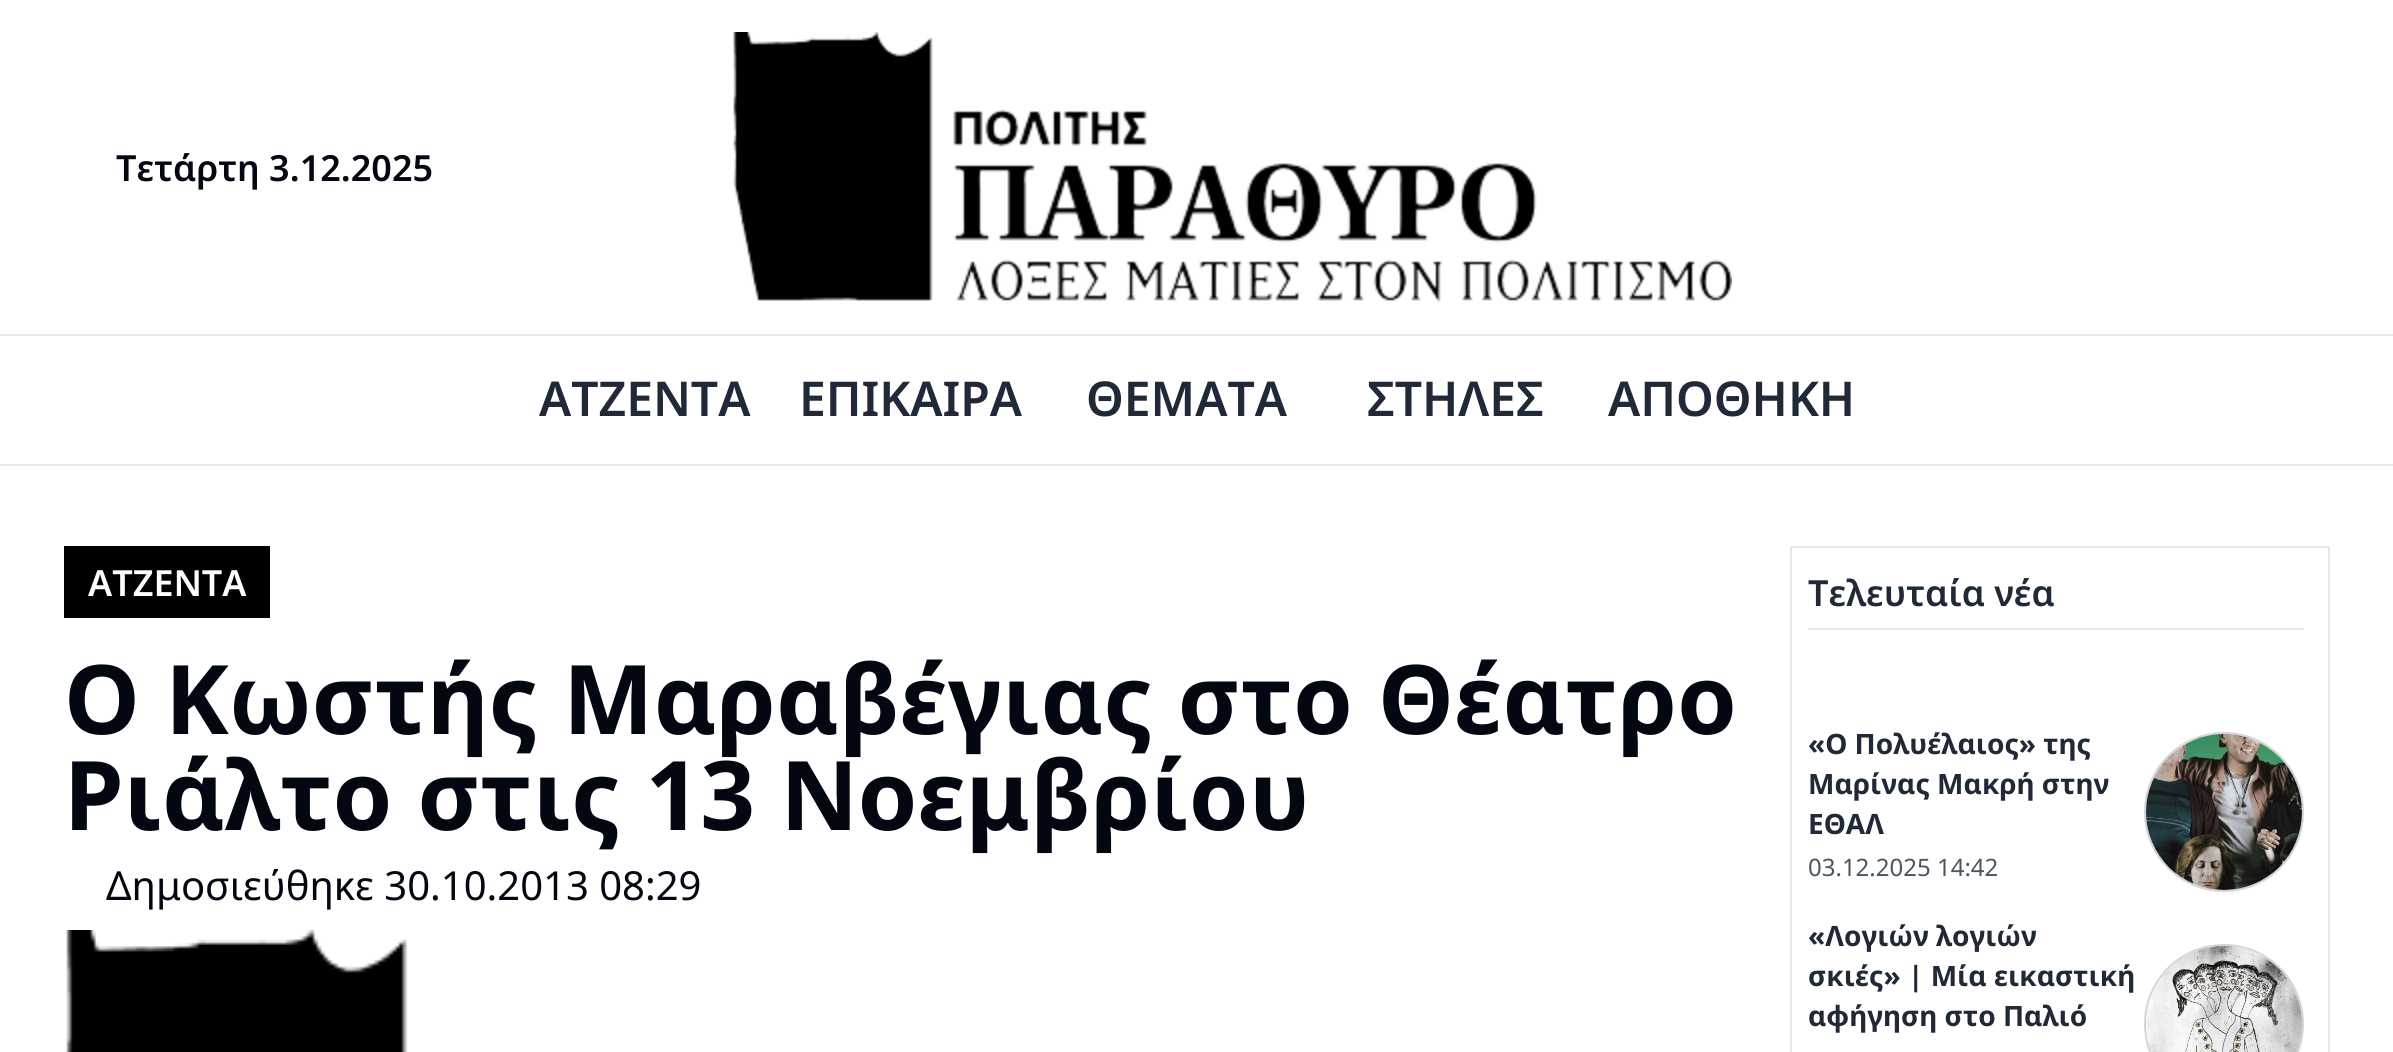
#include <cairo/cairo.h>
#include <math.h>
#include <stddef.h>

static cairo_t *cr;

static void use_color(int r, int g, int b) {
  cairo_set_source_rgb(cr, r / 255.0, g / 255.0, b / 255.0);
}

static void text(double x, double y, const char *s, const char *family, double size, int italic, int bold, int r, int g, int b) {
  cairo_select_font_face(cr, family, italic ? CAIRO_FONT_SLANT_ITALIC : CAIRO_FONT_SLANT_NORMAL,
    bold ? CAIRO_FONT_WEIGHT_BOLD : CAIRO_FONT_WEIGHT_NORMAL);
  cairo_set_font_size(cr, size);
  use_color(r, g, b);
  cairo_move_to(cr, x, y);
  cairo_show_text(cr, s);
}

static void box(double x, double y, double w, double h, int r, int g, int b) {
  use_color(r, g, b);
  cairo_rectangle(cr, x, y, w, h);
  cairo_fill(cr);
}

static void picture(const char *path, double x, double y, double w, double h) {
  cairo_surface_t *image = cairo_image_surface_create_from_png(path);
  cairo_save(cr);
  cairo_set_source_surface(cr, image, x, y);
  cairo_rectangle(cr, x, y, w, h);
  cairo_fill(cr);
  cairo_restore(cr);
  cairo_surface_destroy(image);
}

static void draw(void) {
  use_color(255, 255, 255);
  cairo_paint(cr);
  box(0, 464, 2393, 2, 229, 231, 235);
  picture("img_01.png", 733, 32, 999, 270);
  box(0, 334, 2393, 2, 229, 231, 235);
  box(64, 546, 206, 72, 0, 0, 0);
  picture("img_02.png", 66, 930, 342, 122);
  cairo_rectangle(cr, 1791, 547, 538, 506);
  use_color(229, 231, 235);
  cairo_stroke(cr);
  box(1808, 628, 496, 2, 229, 231, 235);
  cairo_arc(cr, 2224, 812, 79, 0, 2 * M_PI);
  use_color(209, 213, 219);
  cairo_stroke(cr);
  picture("img_03.png", 2146, 734, 156, 156);
  cairo_arc(cr, 2224, 1024, 79, 0, 2 * M_PI);
  cairo_stroke(cr);
  picture("img_04.png", 2146, 946, 156, 106);
  text(116, 181, "Τετάρτη 3.12.2025", "Noto Sans SemiBold", 36, 0, 0, 3, 7, 18);
  text(539, 416, "ΑΤΖΕΝΤΑ", "Noto Sans SemiBold", 48, 0, 0, 31, 41, 55);
  text(799, 416, "ΕΠΙΚΑΙΡΑ", "Noto Sans SemiBold", 48, 0, 0, 31, 41, 55);
  text(1086, 416, "ΘΕΜΑΤΑ", "Noto Sans SemiBold", 48, 0, 0, 31, 41, 55);
  text(1367, 416, "ΣΤΗΛΕΣ", "Noto Sans SemiBold", 48, 0, 0, 31, 41, 55);
  text(1608, 416, "ΑΠΟΘΗΚΗ", "Noto Sans SemiBold", 48, 0, 0, 31, 41, 55);
  text(88, 596, "ΑΤΖΕΝΤΑ", "Noto Sans SemiBold", 36, 0, 0, 255, 255, 255);
  text(64, 734, "O Kωστής Μαραβέγιας στο Θέατρο", "Noto Sans", 96, 0, 1, 3, 7, 18);
  text(64, 830, "Ριάλτο στις 13 Νοεμβρίου", "Noto Sans", 96, 0, 1, 3, 7, 18);
  text(106, 900, "Δημοσιεύθηκε 30.10.2013 08:29", "Noto Sans", 40, 0, 0, 3, 7, 18);
  text(1808, 606, "Τελευταία νέα", "Noto Sans SemiBold", 36, 0, 0, 31, 41, 55);
  text(1808, 754, "«Ο Πολυέλαιος» της", "Noto Sans", 28, 0, 1, 31, 41, 55);
  text(1808, 794, "Μαρίνας Μακρή στην", "Noto Sans", 28, 0, 1, 31, 41, 55);
  text(1808, 834, "ΕΘΑΛ", "Noto Sans", 28, 0, 1, 31, 41, 55);
  text(1808, 876, "03.12.2025 14:42", "Noto Sans", 24, 0, 0, 75, 85, 99);
  text(1808, 946, "«Λογιών λογιών", "Noto Sans", 28, 0, 1, 31, 41, 55);
  text(1808, 986, "σκιές» | Μία εικαστική", "Noto Sans", 28, 0, 1, 31, 41, 55);
  text(1808, 1026, "αφήγηση στο Παλιό", "Noto Sans", 28, 0, 1, 31, 41, 55);
}

int main(void) {
  cairo_surface_t *surface = cairo_image_surface_create(CAIRO_FORMAT_RGB24, 2393, 1052);
  cr = cairo_create(surface);
  cairo_font_options_t *options = cairo_font_options_create();
  cairo_font_options_set_hint_metrics(options, CAIRO_HINT_METRICS_OFF);
  cairo_font_options_set_hint_style(options, CAIRO_HINT_STYLE_NONE);
  cairo_set_font_options(cr, options);
  cairo_set_miter_limit(cr, 4);
  draw();
  cairo_surface_write_to_png(surface, "out.png");
  cairo_font_options_destroy(options);
  cairo_destroy(cr);
  cairo_surface_destroy(surface);
  return 0;
}
